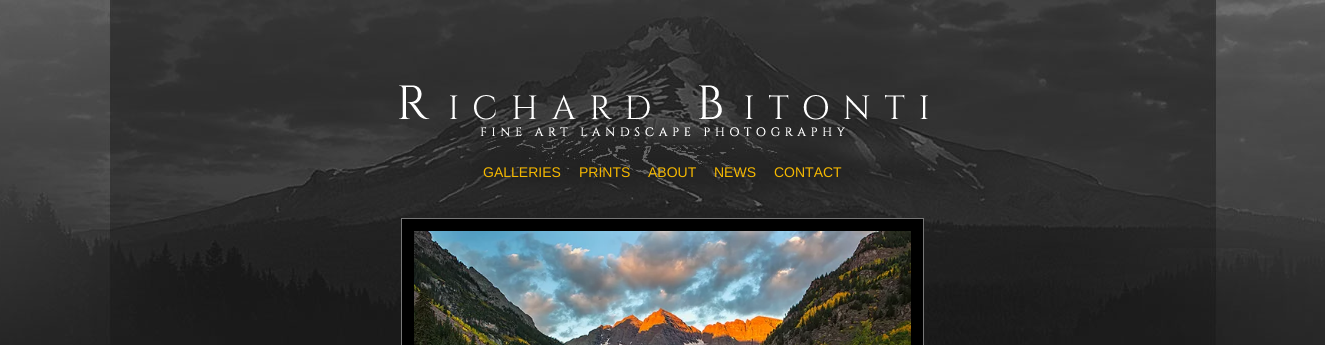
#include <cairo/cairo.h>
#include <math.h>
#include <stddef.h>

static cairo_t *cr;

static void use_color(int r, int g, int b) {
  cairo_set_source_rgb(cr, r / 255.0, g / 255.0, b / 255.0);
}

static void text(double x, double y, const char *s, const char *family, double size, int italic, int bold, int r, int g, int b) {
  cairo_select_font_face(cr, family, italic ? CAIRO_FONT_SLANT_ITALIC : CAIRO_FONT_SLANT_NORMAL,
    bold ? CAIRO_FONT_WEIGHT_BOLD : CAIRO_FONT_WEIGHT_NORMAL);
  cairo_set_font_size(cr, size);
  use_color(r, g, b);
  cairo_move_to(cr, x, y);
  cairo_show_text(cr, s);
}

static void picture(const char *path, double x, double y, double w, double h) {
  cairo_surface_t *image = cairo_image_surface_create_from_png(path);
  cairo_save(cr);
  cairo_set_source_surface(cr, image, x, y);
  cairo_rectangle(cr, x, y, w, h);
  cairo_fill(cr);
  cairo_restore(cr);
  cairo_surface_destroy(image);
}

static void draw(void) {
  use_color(255, 255, 255);
  cairo_paint(cr);
  picture("img_01.png", 0, 0, 1325, 345);
  picture("img_02.png", 399, 85, 529, 52);
  use_color(0, 0, 0);
  cairo_rectangle(cr, 401.5, 218.5, 522, 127);
  cairo_fill_preserve(cr);
  use_color(119, 119, 119);
  cairo_set_line_width(cr, 1);
  cairo_stroke(cr);
  picture("img_03.png", 414, 231, 497, 114);
  text(483, 177, "GALLERIES", "Liberation Sans", 14, 0, 0, 245, 184, 0);
  text(579, 177, "PRINTS", "Liberation Sans", 14, 0, 0, 245, 184, 0);
  text(648, 177, "ABOUT", "Liberation Sans", 14, 0, 0, 245, 184, 0);
  text(714, 177, "NEWS", "Liberation Sans", 14, 0, 0, 245, 184, 0);
  text(774, 177, "CONTACT", "Liberation Sans", 14, 0, 0, 245, 184, 0);
}

int main(void) {
  cairo_surface_t *surface = cairo_image_surface_create(CAIRO_FORMAT_RGB24, 1325, 345);
  cr = cairo_create(surface);
  cairo_font_options_t *options = cairo_font_options_create();
  cairo_font_options_set_hint_metrics(options, CAIRO_HINT_METRICS_OFF);
  cairo_font_options_set_hint_style(options, CAIRO_HINT_STYLE_NONE);
  cairo_set_font_options(cr, options);
  cairo_set_miter_limit(cr, 4);
  draw();
  cairo_surface_write_to_png(surface, "out.png");
  cairo_font_options_destroy(options);
  cairo_destroy(cr);
  cairo_surface_destroy(surface);
  return 0;
}
